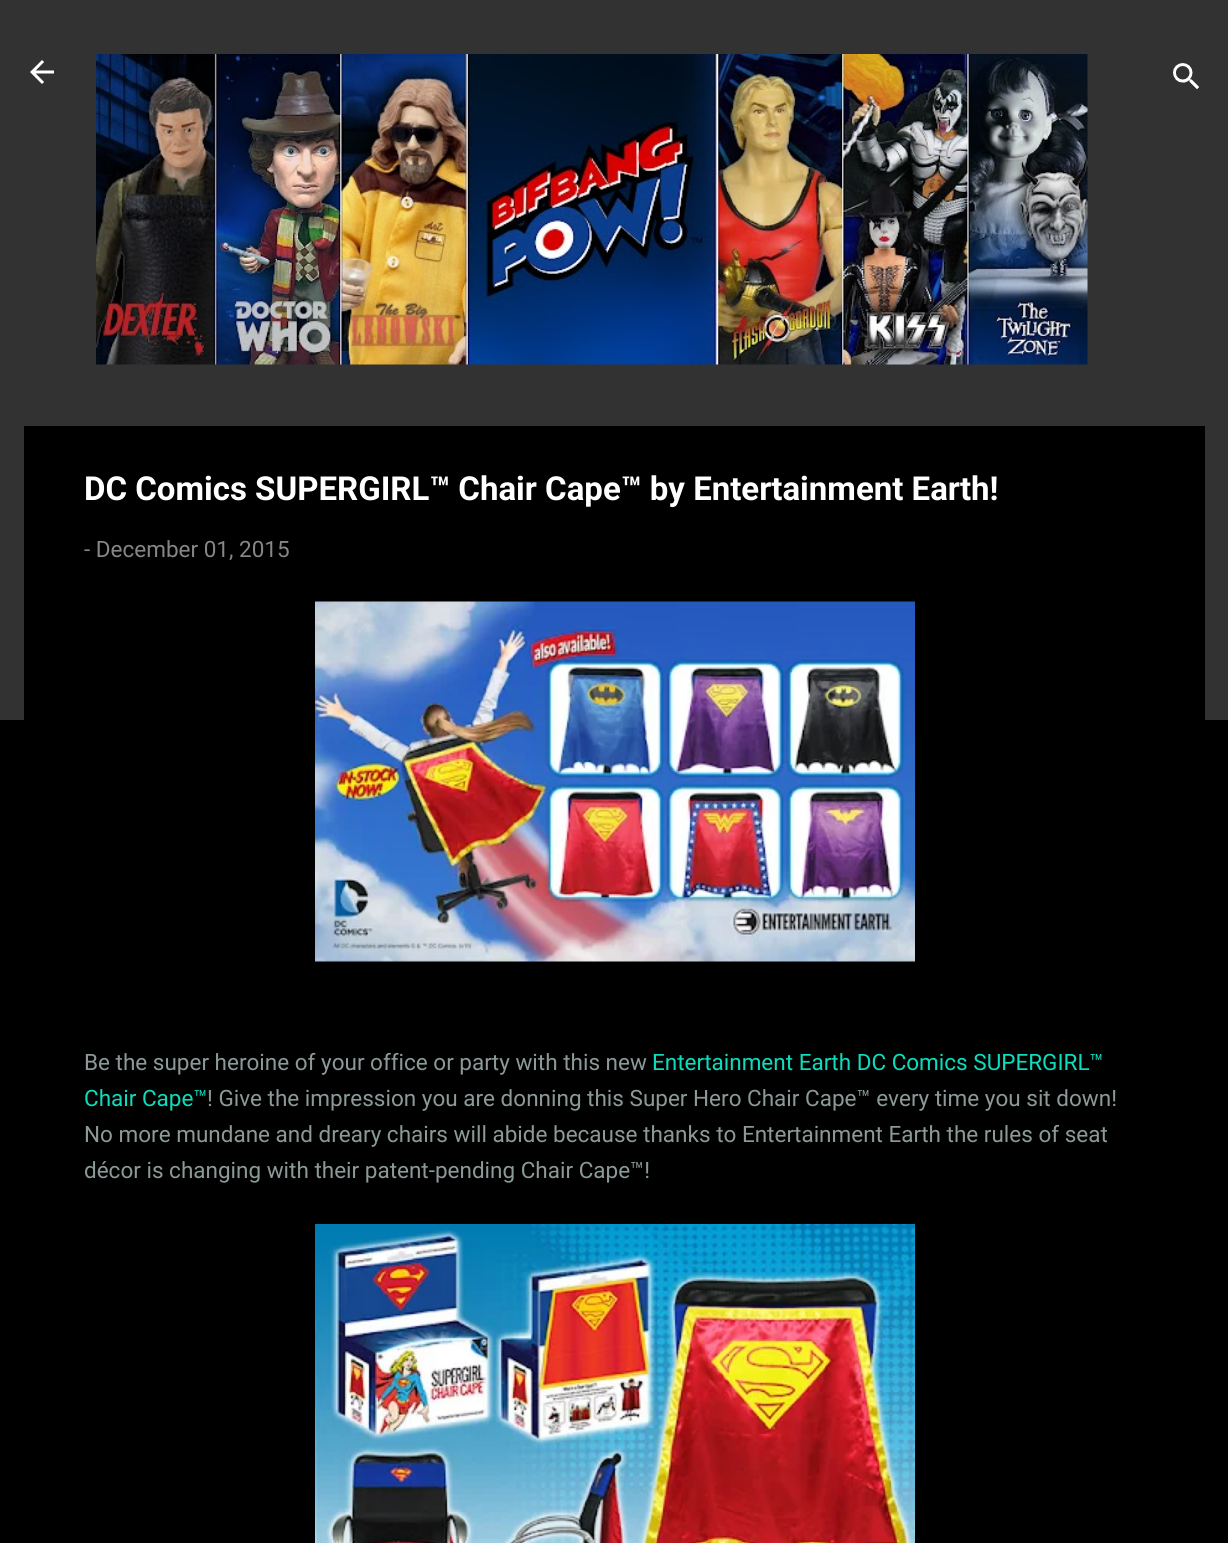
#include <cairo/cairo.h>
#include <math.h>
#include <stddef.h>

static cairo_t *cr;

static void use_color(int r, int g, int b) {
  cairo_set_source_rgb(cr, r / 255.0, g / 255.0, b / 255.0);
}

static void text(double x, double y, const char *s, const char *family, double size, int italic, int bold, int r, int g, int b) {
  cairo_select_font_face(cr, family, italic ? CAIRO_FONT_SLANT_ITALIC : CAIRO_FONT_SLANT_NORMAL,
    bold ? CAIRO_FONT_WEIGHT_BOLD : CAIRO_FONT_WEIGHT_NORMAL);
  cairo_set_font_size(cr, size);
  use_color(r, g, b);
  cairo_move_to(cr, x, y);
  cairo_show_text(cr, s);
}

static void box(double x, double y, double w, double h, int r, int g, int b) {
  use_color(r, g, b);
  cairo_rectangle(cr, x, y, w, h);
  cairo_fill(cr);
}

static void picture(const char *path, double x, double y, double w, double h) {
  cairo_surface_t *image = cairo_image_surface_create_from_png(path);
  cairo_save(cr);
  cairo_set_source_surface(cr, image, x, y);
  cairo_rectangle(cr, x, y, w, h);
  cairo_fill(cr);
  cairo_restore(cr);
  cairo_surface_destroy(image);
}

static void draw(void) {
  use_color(0, 0, 0);
  cairo_paint(cr);
  box(0, 0, 1228, 720, 50, 50, 50);
  picture("img_01.png", 30, 60, 24, 24);
  picture("img_02.png", 96, 54, 992, 311);
  picture("img_03.png", 1173, 63, 26, 27);
  box(24, 426, 1181, 294, 0, 0, 0);
  picture("img_04.png", 315, 601, 600, 361);
  picture("img_05.png", 315, 1224, 600, 319);
  text(84, 500, "DC Comics SUPERGIRL™ Chair Cape™ by Entertainment Earth!", "Roboto", 33, 0, 1, 255, 255, 255);
  text(84, 557, "- December 01, 2015", "Roboto", 22.5, 0, 0, 134, 134, 134);
  text(84, 1070, "Be the super heroine of your office or party with this new", "Roboto", 22.5, 0, 0, 139, 154, 152);
  text(652, 1070, "Entertainment Earth DC Comics SUPERGIRL™", "Roboto", 22.5, 0, 0, 12, 221, 189);
  text(84, 1106, "Chair Cape™", "Roboto", 22.5, 0, 0, 12, 221, 189);
  text(207, 1106, "! Give the impression you are donning this Super Hero Chair Cape™ every time you sit down!", "Roboto", 22.5, 0, 0, 139, 154, 152);
  text(84, 1142, "No more mundane and dreary chairs will abide because thanks to Entertainment Earth the rules of seat", "Roboto", 22.5, 0, 0, 139, 154, 152);
  text(84, 1178, "décor is changing with their patent-pending Chair Cape™!", "Roboto", 22.5, 0, 0, 139, 154, 152);
}

int main(void) {
  cairo_surface_t *surface = cairo_image_surface_create(CAIRO_FORMAT_RGB24, 1228, 1543);
  cr = cairo_create(surface);
  cairo_font_options_t *options = cairo_font_options_create();
  cairo_font_options_set_hint_metrics(options, CAIRO_HINT_METRICS_OFF);
  cairo_font_options_set_hint_style(options, CAIRO_HINT_STYLE_NONE);
  cairo_set_font_options(cr, options);
  cairo_set_miter_limit(cr, 4);
  draw();
  cairo_surface_write_to_png(surface, "out.png");
  cairo_font_options_destroy(options);
  cairo_destroy(cr);
  cairo_surface_destroy(surface);
  return 0;
}
